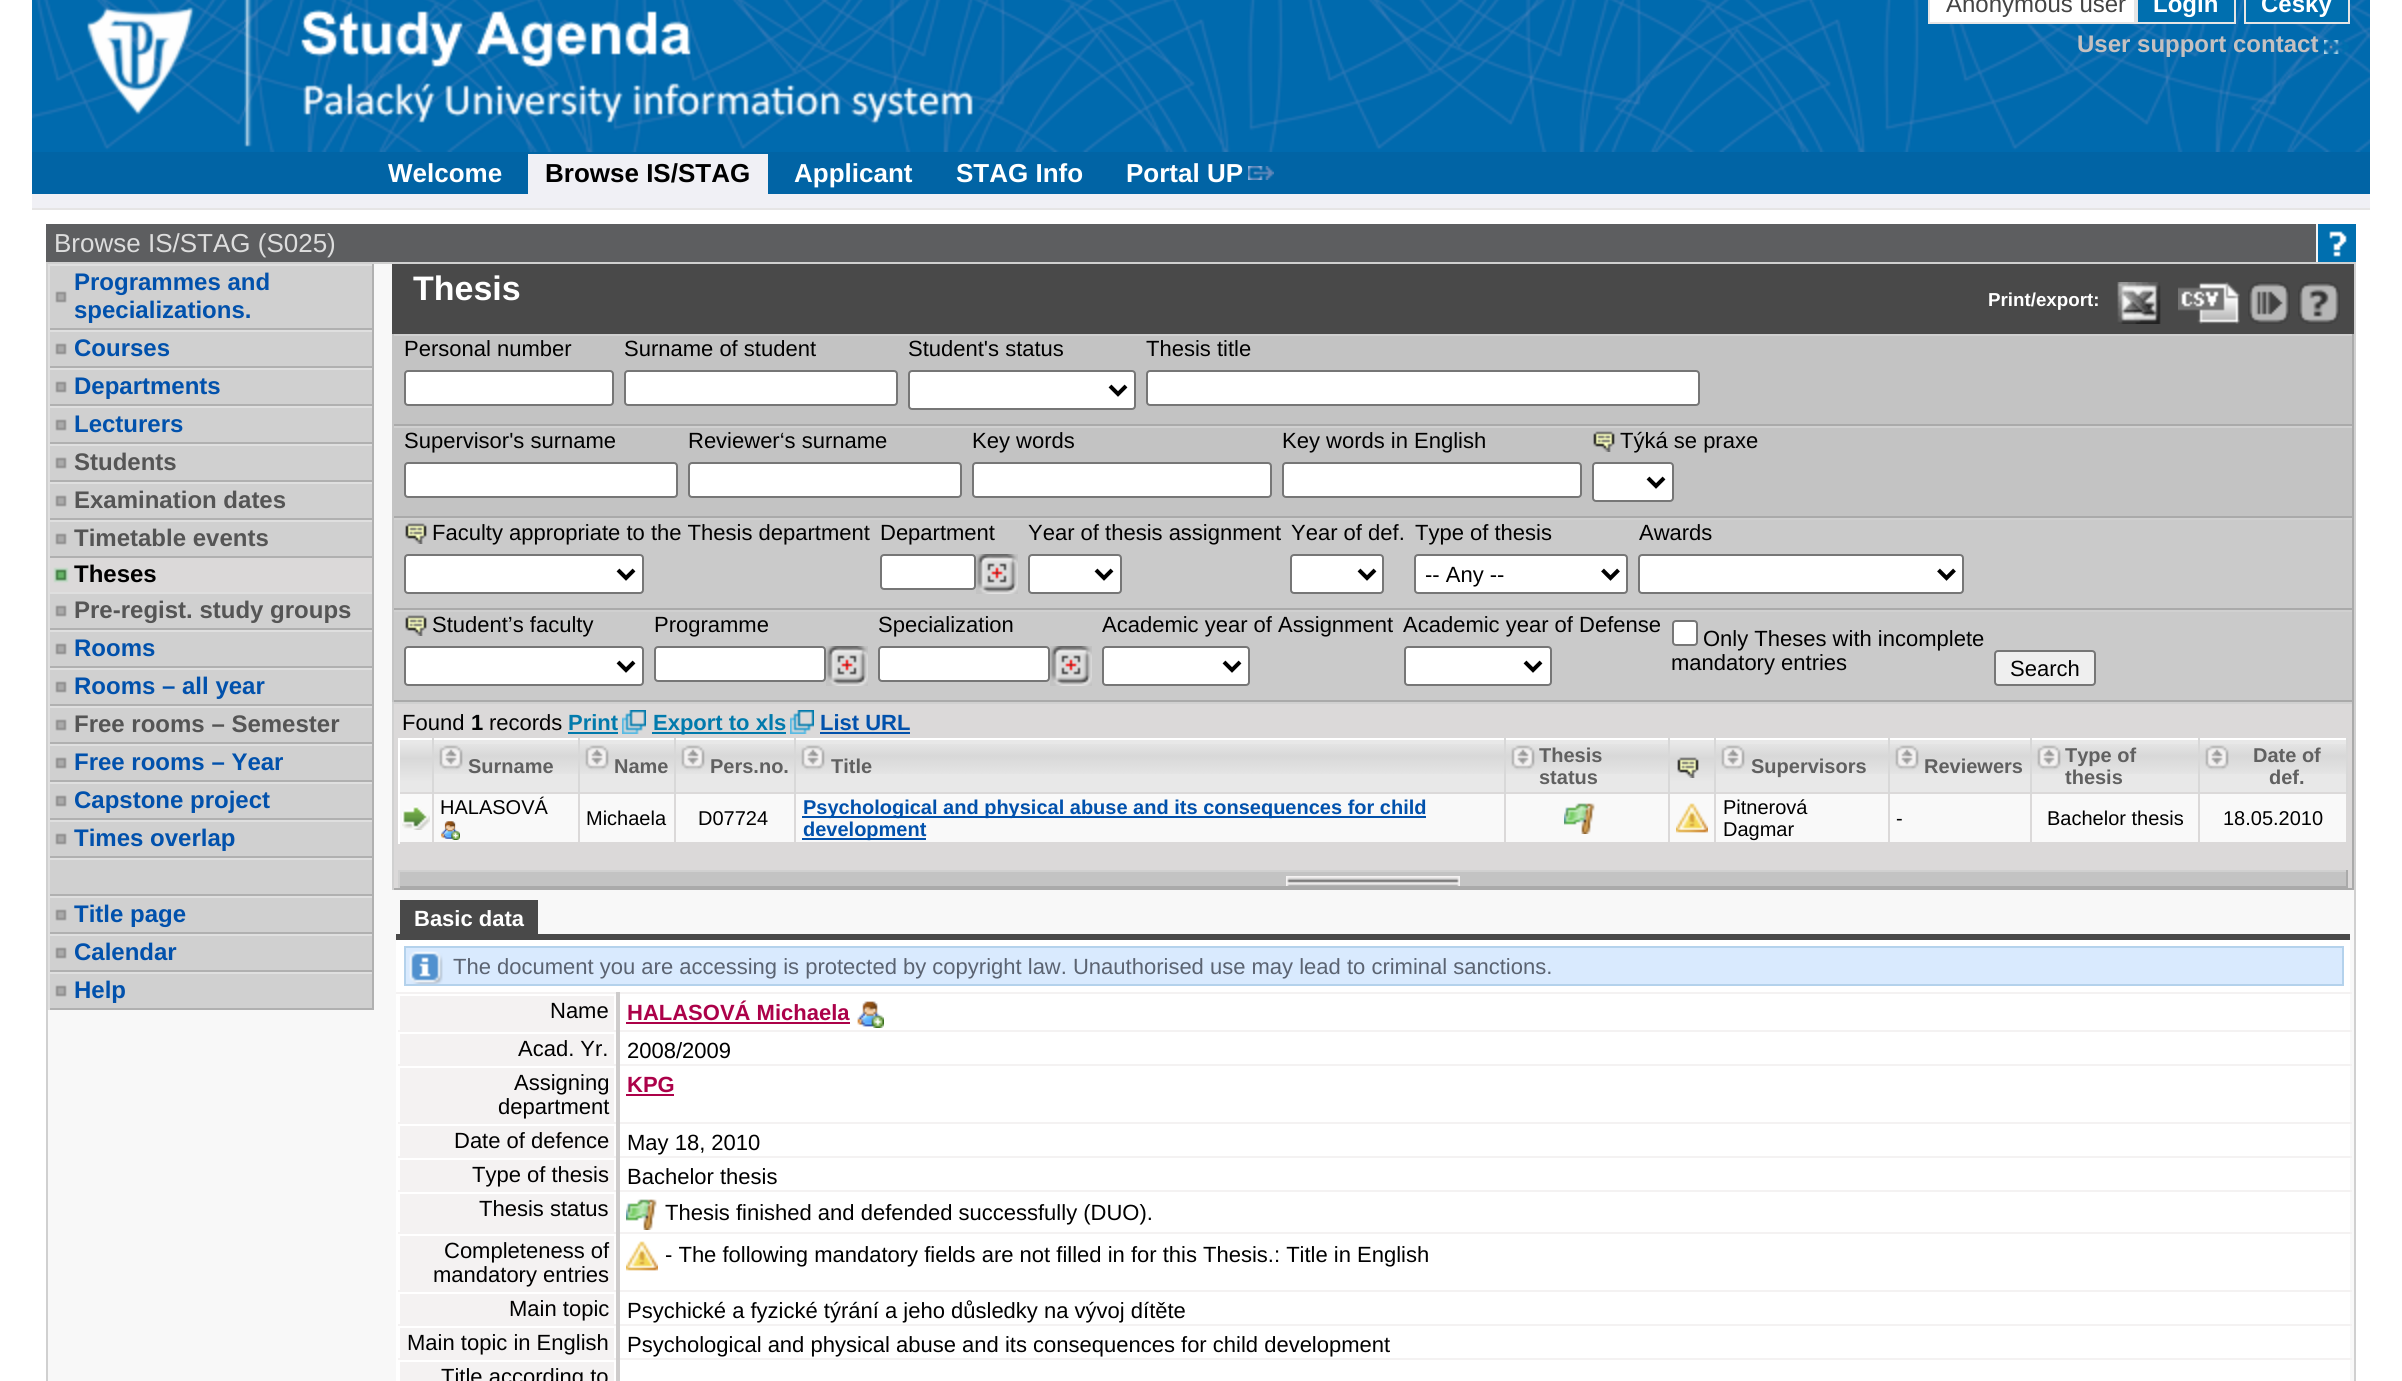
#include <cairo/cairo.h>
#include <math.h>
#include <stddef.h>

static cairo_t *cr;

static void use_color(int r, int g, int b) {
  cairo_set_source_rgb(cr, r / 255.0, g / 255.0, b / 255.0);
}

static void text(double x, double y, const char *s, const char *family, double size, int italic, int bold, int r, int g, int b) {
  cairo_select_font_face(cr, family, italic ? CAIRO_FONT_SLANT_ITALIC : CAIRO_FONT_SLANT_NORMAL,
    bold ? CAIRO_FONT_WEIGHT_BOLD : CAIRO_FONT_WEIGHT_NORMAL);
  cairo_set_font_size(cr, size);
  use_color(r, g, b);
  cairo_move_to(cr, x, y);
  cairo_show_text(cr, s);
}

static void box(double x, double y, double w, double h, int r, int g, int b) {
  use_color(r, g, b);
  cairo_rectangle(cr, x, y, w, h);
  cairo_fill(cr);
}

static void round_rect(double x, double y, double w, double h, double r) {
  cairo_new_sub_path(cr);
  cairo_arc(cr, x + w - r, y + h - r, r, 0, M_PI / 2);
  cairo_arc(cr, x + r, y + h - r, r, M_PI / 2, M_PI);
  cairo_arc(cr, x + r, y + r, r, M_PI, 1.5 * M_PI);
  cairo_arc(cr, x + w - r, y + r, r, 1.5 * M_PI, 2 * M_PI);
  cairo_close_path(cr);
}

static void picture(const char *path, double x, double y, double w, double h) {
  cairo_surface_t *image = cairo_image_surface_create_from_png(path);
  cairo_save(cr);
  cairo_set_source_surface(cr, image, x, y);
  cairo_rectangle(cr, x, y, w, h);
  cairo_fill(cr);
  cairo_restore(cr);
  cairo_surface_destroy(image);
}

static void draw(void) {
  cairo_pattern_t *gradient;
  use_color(255, 255, 255);
  cairo_paint(cr);
  picture("img_01.png", 32, 0, 2338, 152);
  picture("img_02.png", 87, 7, 157, 110);
  picture("img_03.png", 244, 0, 788, 147);
  use_color(255, 255, 255);
  cairo_rectangle(cr, 1929, -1, 206, 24);
  cairo_fill_preserve(cr);
  use_color(230, 229, 229);
  cairo_stroke(cr);
  use_color(0, 111, 175);
  cairo_rectangle(cr, 2137, -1, 98, 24);
  cairo_fill_preserve(cr);
  use_color(230, 229, 229);
  cairo_stroke(cr);
  use_color(0, 111, 175);
  cairo_rectangle(cr, 2245, -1, 104, 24);
  cairo_fill_preserve(cr);
  use_color(230, 229, 229);
  cairo_stroke(cr);
  picture("img_04.png", 2324, 40, 25, 14);
  box(32, 152, 2338, 42, 1, 100, 165);
  box(528, 154, 240, 40, 240, 240, 245);
  picture("img_05.png", 1248, 166, 26, 14);
  box(32, 194, 2338, 14, 240, 240, 245);
  box(32, 208, 2338, 2, 230, 229, 229);
  box(46, 224, 2270, 38, 93, 94, 96);
  box(2316, 224, 2, 38, 245, 245, 245);
  picture("img_06.png", 2318, 224, 38, 38);
  use_color(248, 248, 248);
  cairo_rectangle(cr, 47, 263, 2308, 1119);
  cairo_fill_preserve(cr);
  use_color(208, 208, 208);
  cairo_stroke(cr);
  box(50, 266, 322, 62, 208, 208, 208);
  picture("img_07.png", 55, 291, 12, 12);
  box(48, 264, 326, 2, 223, 223, 223);
  box(372, 264, 2, 66, 176, 176, 176);
  box(48, 328, 326, 2, 176, 176, 176);
  box(48, 264, 2, 66, 223, 223, 223);
  box(50, 332, 322, 34, 208, 208, 208);
  picture("img_07.png", 55, 343, 12, 12);
  box(48, 330, 326, 2, 223, 223, 223);
  box(372, 330, 2, 38, 176, 176, 176);
  box(48, 366, 326, 2, 176, 176, 176);
  box(48, 330, 2, 38, 223, 223, 223);
  box(50, 370, 322, 34, 208, 208, 208);
  picture("img_07.png", 55, 381, 12, 12);
  box(48, 368, 326, 2, 223, 223, 223);
  box(372, 368, 2, 38, 176, 176, 176);
  box(48, 404, 326, 2, 176, 176, 176);
  box(48, 368, 2, 38, 223, 223, 223);
  box(50, 408, 322, 34, 208, 208, 208);
  picture("img_07.png", 55, 419, 12, 12);
  box(48, 406, 326, 2, 223, 223, 223);
  box(372, 406, 2, 38, 176, 176, 176);
  box(48, 442, 326, 2, 176, 176, 176);
  box(48, 406, 2, 38, 223, 223, 223);
  box(50, 446, 322, 34, 208, 208, 208);
  picture("img_07.png", 55, 457, 12, 12);
  box(48, 444, 326, 2, 223, 223, 223);
  box(372, 444, 2, 38, 176, 176, 176);
  box(48, 480, 326, 2, 176, 176, 176);
  box(48, 444, 2, 38, 223, 223, 223);
  box(50, 484, 322, 34, 208, 208, 208);
  picture("img_07.png", 55, 495, 12, 12);
  box(48, 482, 326, 2, 223, 223, 223);
  box(372, 482, 2, 38, 176, 176, 176);
  box(48, 518, 326, 2, 176, 176, 176);
  box(48, 482, 2, 38, 223, 223, 223);
  box(50, 522, 322, 34, 208, 208, 208);
  picture("img_07.png", 55, 533, 12, 12);
  box(48, 520, 326, 2, 223, 223, 223);
  box(372, 520, 2, 72, 176, 176, 176);
  box(48, 556, 326, 2, 176, 176, 176);
  box(48, 520, 2, 72, 223, 223, 223);
  box(50, 558, 322, 34, 219, 217, 217);
  picture("img_08.png", 53, 567, 16, 16);
  box(50, 594, 322, 34, 208, 208, 208);
  picture("img_07.png", 55, 605, 12, 12);
  box(48, 592, 326, 2, 223, 223, 223);
  box(372, 592, 2, 38, 176, 176, 176);
  box(48, 628, 326, 2, 176, 176, 176);
  box(48, 592, 2, 38, 223, 223, 223);
  box(50, 632, 322, 34, 208, 208, 208);
  picture("img_07.png", 55, 643, 12, 12);
  box(48, 630, 326, 2, 223, 223, 223);
  box(372, 630, 2, 38, 176, 176, 176);
  box(48, 666, 326, 2, 176, 176, 176);
  box(48, 630, 2, 38, 223, 223, 223);
  box(50, 670, 322, 34, 208, 208, 208);
  picture("img_07.png", 55, 681, 12, 12);
  box(48, 668, 326, 2, 223, 223, 223);
  box(372, 668, 2, 38, 176, 176, 176);
  box(48, 704, 326, 2, 176, 176, 176);
  box(48, 668, 2, 38, 223, 223, 223);
  box(50, 708, 322, 34, 208, 208, 208);
  picture("img_07.png", 55, 719, 12, 12);
  box(48, 706, 326, 2, 223, 223, 223);
  box(372, 706, 2, 38, 176, 176, 176);
  box(48, 742, 326, 2, 176, 176, 176);
  box(48, 706, 2, 38, 223, 223, 223);
  box(50, 746, 322, 34, 208, 208, 208);
  picture("img_07.png", 55, 757, 12, 12);
  box(48, 744, 326, 2, 223, 223, 223);
  box(372, 744, 2, 38, 176, 176, 176);
  box(48, 780, 326, 2, 176, 176, 176);
  box(48, 744, 2, 38, 223, 223, 223);
  box(50, 784, 322, 34, 208, 208, 208);
  picture("img_07.png", 55, 795, 12, 12);
  box(48, 782, 326, 2, 223, 223, 223);
  box(372, 782, 2, 38, 176, 176, 176);
  box(48, 818, 326, 2, 176, 176, 176);
  box(48, 782, 2, 38, 223, 223, 223);
  box(50, 822, 322, 34, 208, 208, 208);
  picture("img_07.png", 55, 833, 12, 12);
  box(48, 820, 326, 2, 223, 223, 223);
  box(372, 820, 2, 38, 176, 176, 176);
  box(48, 856, 326, 2, 176, 176, 176);
  box(48, 820, 2, 38, 223, 223, 223);
  box(50, 860, 322, 34, 208, 208, 208);
  box(48, 858, 326, 2, 223, 223, 223);
  box(372, 858, 2, 38, 176, 176, 176);
  box(48, 894, 326, 2, 176, 176, 176);
  box(48, 858, 2, 38, 223, 223, 223);
  box(50, 898, 322, 34, 208, 208, 208);
  picture("img_07.png", 55, 909, 12, 12);
  box(48, 896, 326, 2, 223, 223, 223);
  box(372, 896, 2, 38, 176, 176, 176);
  box(48, 932, 326, 2, 176, 176, 176);
  box(48, 896, 2, 38, 223, 223, 223);
  box(50, 936, 322, 34, 208, 208, 208);
  picture("img_07.png", 55, 947, 12, 12);
  box(48, 934, 326, 2, 223, 223, 223);
  box(372, 934, 2, 38, 176, 176, 176);
  box(48, 970, 326, 2, 176, 176, 176);
  box(48, 934, 2, 38, 223, 223, 223);
  box(50, 974, 322, 34, 208, 208, 208);
  picture("img_07.png", 55, 985, 12, 12);
  box(48, 972, 326, 2, 223, 223, 223);
  box(372, 972, 2, 38, 176, 176, 176);
  box(48, 1008, 326, 2, 176, 176, 176);
  box(48, 972, 2, 38, 223, 223, 223);
  box(392, 264, 1962, 70, 73, 73, 73);
  picture("img_09.png", 2117, 282, 44, 42);
  picture("img_10.png", 2178, 282, 62, 42);
  picture("img_11.png", 2248, 282, 42, 42);
  picture("img_12.png", 2298, 282, 42, 42);
  box(394, 336, 1958, 88, 195, 195, 195);
  box(392, 334, 1962, 2, 208, 208, 208);
  box(2352, 334, 2, 92, 170, 170, 170);
  box(392, 424, 1962, 2, 170, 170, 170);
  box(392, 334, 2, 92, 195, 195, 195);
  use_color(255, 255, 255);
  round_rect(405, 371, 208, 34, 3);
  cairo_fill_preserve(cr);
  use_color(118, 118, 118);
  cairo_stroke(cr);
  use_color(255, 255, 255);
  round_rect(625, 371, 272, 34, 3);
  cairo_fill_preserve(cr);
  use_color(118, 118, 118);
  cairo_stroke(cr);
  use_color(255, 255, 255);
  round_rect(909, 371, 226, 38, 3);
  cairo_fill_preserve(cr);
  use_color(118, 118, 118);
  cairo_stroke(cr);
  cairo_new_path(cr);
  cairo_move_to(cr, 1110, 386);
  cairo_line_to(cr, 1118, 394);
  cairo_line_to(cr, 1126, 386);
  use_color(0, 0, 0);
  cairo_set_line_width(cr, 4);
  cairo_stroke(cr);
  use_color(255, 255, 255);
  round_rect(1147, 371, 552, 34, 3);
  cairo_fill_preserve(cr);
  use_color(118, 118, 118);
  cairo_set_line_width(cr, 2);
  cairo_stroke(cr);
  box(394, 428, 1958, 88, 195, 195, 195);
  box(392, 426, 1962, 2, 208, 208, 208);
  box(2352, 426, 2, 92, 170, 170, 170);
  box(392, 516, 1962, 2, 170, 170, 170);
  box(392, 426, 2, 92, 195, 195, 195);
  use_color(255, 255, 255);
  round_rect(405, 463, 272, 34, 3);
  cairo_fill_preserve(cr);
  use_color(118, 118, 118);
  cairo_stroke(cr);
  use_color(255, 255, 255);
  round_rect(689, 463, 272, 34, 3);
  cairo_fill_preserve(cr);
  use_color(118, 118, 118);
  cairo_stroke(cr);
  use_color(255, 255, 255);
  round_rect(973, 463, 298, 34, 3);
  cairo_fill_preserve(cr);
  use_color(118, 118, 118);
  cairo_stroke(cr);
  use_color(255, 255, 255);
  round_rect(1283, 463, 298, 34, 3);
  cairo_fill_preserve(cr);
  use_color(118, 118, 118);
  cairo_stroke(cr);
  picture("img_13.png", 1593, 431, 22, 21);
  use_color(255, 255, 255);
  round_rect(1593, 463, 80, 38, 3);
  cairo_fill_preserve(cr);
  use_color(118, 118, 118);
  cairo_stroke(cr);
  cairo_new_path(cr);
  cairo_move_to(cr, 1648, 478);
  cairo_line_to(cr, 1656, 486);
  cairo_line_to(cr, 1664, 478);
  use_color(0, 0, 0);
  cairo_set_line_width(cr, 4);
  cairo_stroke(cr);
  box(394, 520, 1958, 88, 202, 202, 202);
  box(392, 518, 1962, 2, 208, 208, 208);
  box(2352, 518, 2, 92, 170, 170, 170);
  box(392, 608, 1962, 2, 170, 170, 170);
  box(392, 518, 2, 92, 195, 195, 195);
  picture("img_14.png", 405, 523, 22, 21);
  use_color(255, 255, 255);
  round_rect(405, 555, 238, 38, 3);
  cairo_fill_preserve(cr);
  use_color(118, 118, 118);
  cairo_set_line_width(cr, 2);
  cairo_stroke(cr);
  cairo_new_path(cr);
  cairo_move_to(cr, 618, 570);
  cairo_line_to(cr, 626, 578);
  cairo_line_to(cr, 634, 570);
  use_color(0, 0, 0);
  cairo_set_line_width(cr, 4);
  cairo_stroke(cr);
  use_color(255, 255, 255);
  round_rect(881, 555, 94, 34, 3);
  cairo_fill_preserve(cr);
  use_color(118, 118, 118);
  cairo_set_line_width(cr, 2);
  cairo_stroke(cr);
  picture("img_15.png", 976, 554, 42, 40);
  use_color(255, 255, 255);
  round_rect(1029, 555, 92, 38, 3);
  cairo_fill_preserve(cr);
  use_color(118, 118, 118);
  cairo_stroke(cr);
  cairo_new_path(cr);
  cairo_move_to(cr, 1096, 570);
  cairo_line_to(cr, 1104, 578);
  cairo_line_to(cr, 1112, 570);
  use_color(0, 0, 0);
  cairo_set_line_width(cr, 4);
  cairo_stroke(cr);
  use_color(255, 255, 255);
  round_rect(1291, 555, 92, 38, 3);
  cairo_fill_preserve(cr);
  use_color(118, 118, 118);
  cairo_set_line_width(cr, 2);
  cairo_stroke(cr);
  cairo_new_path(cr);
  cairo_move_to(cr, 1359, 570);
  cairo_line_to(cr, 1367, 578);
  cairo_line_to(cr, 1375, 570);
  use_color(0, 0, 0);
  cairo_set_line_width(cr, 4);
  cairo_stroke(cr);
  use_color(255, 255, 255);
  round_rect(1415, 555, 212, 38, 3);
  cairo_fill_preserve(cr);
  use_color(118, 118, 118);
  cairo_set_line_width(cr, 2);
  cairo_stroke(cr);
  cairo_new_path(cr);
  cairo_move_to(cr, 1602.5, 570);
  cairo_line_to(cr, 1610.5, 578);
  cairo_line_to(cr, 1618.5, 570);
  use_color(0, 0, 0);
  cairo_set_line_width(cr, 4);
  cairo_stroke(cr);
  use_color(255, 255, 255);
  round_rect(1639, 555, 324, 38, 3);
  cairo_fill_preserve(cr);
  use_color(118, 118, 118);
  cairo_set_line_width(cr, 2);
  cairo_stroke(cr);
  cairo_new_path(cr);
  cairo_move_to(cr, 1938.5, 570);
  cairo_line_to(cr, 1946.5, 578);
  cairo_line_to(cr, 1954.5, 570);
  use_color(0, 0, 0);
  cairo_set_line_width(cr, 4);
  cairo_stroke(cr);
  box(394, 612, 1958, 88, 202, 202, 202);
  box(392, 610, 1962, 2, 208, 208, 208);
  box(2352, 610, 2, 92, 170, 170, 170);
  box(392, 700, 1962, 2, 170, 170, 170);
  box(392, 610, 2, 92, 195, 195, 195);
  picture("img_14.png", 405, 615, 22, 21);
  use_color(255, 255, 255);
  round_rect(405, 647, 238, 38, 3);
  cairo_fill_preserve(cr);
  use_color(118, 118, 118);
  cairo_set_line_width(cr, 2);
  cairo_stroke(cr);
  cairo_new_path(cr);
  cairo_move_to(cr, 618, 662);
  cairo_line_to(cr, 626, 670);
  cairo_line_to(cr, 634, 662);
  use_color(0, 0, 0);
  cairo_set_line_width(cr, 4);
  cairo_stroke(cr);
  use_color(255, 255, 255);
  round_rect(655, 647, 170, 34, 3);
  cairo_fill_preserve(cr);
  use_color(118, 118, 118);
  cairo_set_line_width(cr, 2);
  cairo_stroke(cr);
  picture("img_15.png", 826, 646, 42, 40);
  use_color(255, 255, 255);
  round_rect(879, 647, 170, 34, 3);
  cairo_fill_preserve(cr);
  use_color(118, 118, 118);
  cairo_stroke(cr);
  picture("img_15.png", 1050, 646, 42, 40);
  use_color(255, 255, 255);
  round_rect(1103, 647, 146, 38, 3);
  cairo_fill_preserve(cr);
  use_color(118, 118, 118);
  cairo_stroke(cr);
  cairo_new_path(cr);
  cairo_move_to(cr, 1224, 662);
  cairo_line_to(cr, 1232, 670);
  cairo_line_to(cr, 1240, 662);
  use_color(0, 0, 0);
  cairo_set_line_width(cr, 4);
  cairo_stroke(cr);
  use_color(255, 255, 255);
  round_rect(1405, 647, 146, 38, 3);
  cairo_fill_preserve(cr);
  use_color(118, 118, 118);
  cairo_set_line_width(cr, 2);
  cairo_stroke(cr);
  cairo_new_path(cr);
  cairo_move_to(cr, 1525, 662);
  cairo_line_to(cr, 1533, 670);
  cairo_line_to(cr, 1541, 662);
  use_color(0, 0, 0);
  cairo_set_line_width(cr, 4);
  cairo_stroke(cr);
  use_color(255, 255, 255);
  round_rect(1673, 621, 24, 24, 3);
  cairo_fill_preserve(cr);
  use_color(118, 118, 118);
  cairo_set_line_width(cr, 2);
  cairo_stroke(cr);
  use_color(239, 239, 239);
  round_rect(1995, 651, 100, 34, 3);
  cairo_fill_preserve(cr);
  use_color(118, 118, 118);
  cairo_stroke(cr);
  box(394, 704, 1958, 184, 219, 217, 217);
  box(392, 702, 1962, 2, 208, 208, 208);
  box(2352, 702, 2, 188, 170, 170, 170);
  box(392, 888, 1962, 2, 170, 170, 170);
  box(392, 702, 2, 188, 208, 208, 208);
  box(568, 732, 50, 2, 1, 122, 172);
  picture("img_16.png", 622, 710, 24, 24);
  box(652, 732, 134, 2, 1, 122, 172);
  picture("img_16.png", 790, 710, 24, 24);
  box(820, 732, 90, 2, 1, 81, 172);
  box(398, 738, 1948, 54, 255, 255, 255);
  box(400, 740, 32, 2, 232, 232, 232);
  gradient = cairo_pattern_create_linear(417, 742, 417, 794);
  cairo_pattern_add_color_stop_rgba(gradient, 0, 0.91, 0.91, 0.91, 1);
  cairo_pattern_add_color_stop_rgba(gradient, 0.31, 0.847, 0.847, 0.847, 1);
  cairo_pattern_add_color_stop_rgba(gradient, 0.77, 0.91, 0.91, 0.91, 1);
  cairo_set_source(cr, gradient);
  cairo_pattern_destroy(gradient);
  cairo_rectangle(cr, 400, 742, 32, 50);
  cairo_fill(cr);
  box(400, 794, 1946, 48, 249, 249, 249);
  box(432, 792, 2, 52, 219, 217, 217);
  box(432, 738, 2, 56, 216, 216, 216);
  box(434, 740, 144, 52, 232, 232, 232);
  picture("img_17.png", 434, 744, 144, 30);
  box(578, 792, 2, 52, 219, 217, 217);
  box(578, 738, 2, 56, 216, 216, 216);
  box(580, 740, 94, 52, 232, 232, 232);
  picture("img_18.png", 580, 744, 94, 30);
  box(674, 792, 2, 52, 219, 217, 217);
  box(674, 738, 2, 56, 216, 216, 216);
  box(676, 740, 118, 52, 232, 232, 232);
  picture("img_19.png", 676, 744, 118, 30);
  box(794, 792, 2, 52, 219, 217, 217);
  box(794, 738, 2, 56, 216, 216, 216);
  box(796, 740, 708, 52, 232, 232, 232);
  picture("img_20.png", 796, 744, 708, 30);
  box(1504, 792, 2, 52, 219, 217, 217);
  box(1504, 738, 2, 56, 216, 216, 216);
  box(1506, 740, 162, 52, 232, 232, 232);
  picture("img_21.png", 1506, 744, 162, 30);
  box(1668, 792, 2, 52, 219, 217, 217);
  box(1668, 738, 2, 56, 216, 216, 216);
  box(1670, 740, 44, 2, 232, 232, 232);
  gradient = cairo_pattern_create_linear(1692, 742, 1692, 794);
  cairo_pattern_add_color_stop_rgba(gradient, 0, 0.91, 0.91, 0.91, 1);
  cairo_pattern_add_color_stop_rgba(gradient, 0.31, 0.847, 0.847, 0.847, 1);
  cairo_pattern_add_color_stop_rgba(gradient, 0.77, 0.91, 0.91, 0.91, 1);
  cairo_set_source(cr, gradient);
  cairo_pattern_destroy(gradient);
  cairo_rectangle(cr, 1670, 742, 44, 50);
  cairo_fill(cr);
  box(1714, 792, 2, 52, 219, 217, 217);
  box(1714, 738, 2, 56, 216, 216, 216);
  picture("img_22.png", 1677, 757, 22, 21);
  box(1716, 740, 172, 52, 232, 232, 232);
  picture("img_23.png", 1716, 744, 172, 30);
  box(1888, 792, 2, 52, 219, 217, 217);
  box(1888, 738, 2, 56, 216, 216, 216);
  box(1890, 740, 140, 52, 232, 232, 232);
  picture("img_24.png", 1890, 744, 140, 30);
  box(2030, 792, 2, 52, 219, 217, 217);
  box(2030, 738, 2, 56, 216, 216, 216);
  box(2032, 740, 166, 52, 232, 232, 232);
  picture("img_25.png", 2032, 744, 166, 30);
  box(2198, 792, 2, 52, 219, 217, 217);
  box(2198, 738, 2, 56, 216, 216, 216);
  box(2200, 740, 146, 52, 232, 232, 232);
  picture("img_26.png", 2200, 744, 146, 30);
  box(2346, 738, 2, 56, 216, 216, 216);
  box(398, 792, 2, 52, 255, 255, 255);
  picture("img_27.png", 402, 806, 28, 24);
  picture("img_28.png", 441, 821, 19, 19);
  box(802, 816, 624, 2, 1, 81, 172);
  box(802, 838, 124, 2, 1, 81, 172);
  picture("img_29.png", 1564, 803, 31, 31);
  picture("img_30.png", 1676, 803, 32, 30);
  box(400, 872, 1946, 14, 195, 195, 195);
  picture("img_31.png", 1286, 876, 174, 10);
  box(398, 870, 1950, 2, 208, 208, 208);
  box(2346, 870, 2, 18, 170, 170, 170);
  box(398, 886, 1950, 2, 170, 170, 170);
  box(398, 870, 2, 18, 208, 208, 208);
  box(400, 900, 138, 34, 73, 73, 73);
  box(396, 940, 1954, 441, 255, 255, 255);
  box(396, 934, 1954, 6, 73, 73, 73);
  box(396, 992, 1956, 2, 244, 242, 242);
  box(406, 948, 1936, 36, 217, 234, 254);
  picture("img_32.png", 409, 951, 34, 33);
  cairo_rectangle(cr, 405, 947, 1938, 38);
  use_color(180, 210, 236);
  cairo_stroke(cr);
  box(400, 996, 214, 34, 244, 242, 242);
  box(396, 1030, 1956, 2, 244, 242, 242);
  box(396, 1030, 2, 2, 255, 255, 255);
  box(626, 1022, 224, 2, 172, 1, 73);
  picture("img_33.png", 857, 1001, 27, 27);
  box(400, 1034, 214, 30, 244, 242, 242);
  box(396, 1064, 1956, 2, 244, 242, 242);
  box(396, 1064, 2, 2, 255, 255, 255);
  box(400, 1068, 214, 54, 244, 242, 242);
  box(396, 1122, 1956, 2, 244, 242, 242);
  box(396, 1122, 2, 2, 255, 255, 255);
  box(626, 1094, 48, 2, 172, 1, 73);
  box(400, 1126, 214, 30, 244, 242, 242);
  box(396, 1156, 1956, 2, 244, 242, 242);
  box(396, 1156, 2, 2, 255, 255, 255);
  box(400, 1160, 214, 30, 244, 242, 242);
  box(396, 1190, 1956, 2, 244, 242, 242);
  box(396, 1190, 2, 2, 255, 255, 255);
  box(400, 1194, 214, 38, 244, 242, 242);
  box(396, 1232, 1956, 2, 244, 242, 242);
  box(396, 1232, 2, 2, 255, 255, 255);
  picture("img_34.png", 626, 1199, 31, 31);
  box(400, 1236, 214, 54, 244, 242, 242);
  box(396, 1290, 1956, 2, 244, 242, 242);
  box(396, 1290, 2, 2, 255, 255, 255);
  picture("img_35.png", 626, 1241, 32, 30);
  box(400, 1294, 214, 30, 244, 242, 242);
  box(396, 1324, 1956, 2, 244, 242, 242);
  box(396, 1324, 2, 2, 255, 255, 255);
  box(400, 1328, 214, 30, 244, 242, 242);
  box(396, 1358, 1956, 2, 244, 242, 242);
  box(396, 1358, 2, 2, 255, 255, 255);
  box(400, 1362, 214, 19, 244, 242, 242);
  box(616, 992, 4, 389, 206, 204, 204);
  text(1946, 12, "Anonymous user", "Liberation Sans", 24, 0, 0, 68, 68, 68);
  text(2153, 12, "Login", "Liberation Sans", 24, 0, 1, 255, 255, 255);
  text(2261, 12, "Česky", "Liberation Sans", 24, 0, 1, 255, 255, 255);
  text(2077, 52, "User support contact", "Liberation Sans", 24, 0, 1, 197, 192, 192);
  text(388, 182, "Welcome", "Liberation Sans", 26, 0, 1, 255, 255, 255);
  text(545, 182, "Browse IS/STAG", "Liberation Sans", 26, 0, 1, 0, 0, 0);
  text(794, 182, "Applicant", "Liberation Sans", 26, 0, 1, 255, 255, 255);
  text(956, 182, "STAG Info", "Liberation Sans", 26, 0, 1, 255, 255, 255);
  text(1126, 182, "Portal UP", "Liberation Sans", 26, 0, 1, 255, 255, 255);
  text(54, 252, "Browse IS/STAG (S025)", "Liberation Sans", 26, 0, 0, 221, 221, 221);
  text(74, 290, "Programmes and", "Liberation Sans", 24, 0, 1, 1, 81, 172);
  text(74, 318, "specializations.", "Liberation Sans", 24, 0, 1, 1, 81, 172);
  text(74, 356, "Courses", "Liberation Sans", 24, 0, 1, 1, 81, 172);
  text(74, 394, "Departments", "Liberation Sans", 24, 0, 1, 1, 81, 172);
  text(74, 432, "Lecturers", "Liberation Sans", 24, 0, 1, 1, 81, 172);
  text(74, 470, "Students", "Liberation Sans", 24, 0, 1, 85, 85, 85);
  text(74, 508, "Examination dates", "Liberation Sans", 24, 0, 1, 85, 85, 85);
  text(74, 546, "Timetable events", "Liberation Sans", 24, 0, 1, 85, 85, 85);
  text(74, 582, "Theses", "Liberation Sans", 24, 0, 1, 0, 0, 0);
  text(74, 618, "Pre-regist. study groups", "Liberation Sans", 24, 0, 1, 85, 85, 85);
  text(74, 656, "Rooms", "Liberation Sans", 24, 0, 1, 1, 81, 172);
  text(74, 694, "Rooms – all year", "Liberation Sans", 24, 0, 1, 1, 81, 172);
  text(74, 732, "Free rooms – Semester", "Liberation Sans", 24, 0, 1, 85, 85, 85);
  text(74, 770, "Free rooms – Year", "Liberation Sans", 24, 0, 1, 1, 81, 172);
  text(74, 808, "Capstone project", "Liberation Sans", 24, 0, 1, 1, 81, 172);
  text(74, 846, "Times overlap", "Liberation Sans", 24, 0, 1, 1, 81, 172);
  text(74, 922, "Title page", "Liberation Sans", 24, 0, 1, 1, 81, 172);
  text(74, 960, "Calendar", "Liberation Sans", 24, 0, 1, 1, 81, 172);
  text(74, 998, "Help", "Liberation Sans", 24, 0, 1, 1, 81, 172);
  text(413, 300, "Thesis", "Liberation Sans", 34, 0, 1, 255, 255, 255);
  text(1988, 306, "Print/export:", "Liberation Sans", 18.75, 0, 1, 255, 255, 255);
  text(404, 356, "Personal number", "Liberation Sans", 22, 0, 0, 0, 0, 0);
  text(624, 356, "Surname of student", "Liberation Sans", 22, 0, 0, 0, 0, 0);
  text(908, 356, "Student's status", "Liberation Sans", 22, 0, 0, 0, 0, 0);
  text(1146, 356, "Thesis title", "Liberation Sans", 22, 0, 0, 0, 0, 0);
  text(404, 448, "Supervisor's surname", "Liberation Sans", 22, 0, 0, 0, 0, 0);
  text(688, 448, "Reviewer‘s surname", "Liberation Sans", 22, 0, 0, 0, 0, 0);
  text(972, 448, "Key words", "Liberation Sans", 22, 0, 0, 0, 0, 0);
  text(1282, 448, "Key words in English", "Liberation Sans", 22, 0, 0, 0, 0, 0);
  text(1620, 448, "Týká se praxe", "Liberation Sans", 22, 0, 0, 0, 0, 0);
  text(432, 540, "Faculty appropriate to the Thesis department", "Liberation Sans", 22, 0, 0, 0, 0, 0);
  text(880, 540, "Department", "Liberation Sans", 22, 0, 0, 0, 0, 0);
  text(1028, 540, "Year of thesis assignment", "Liberation Sans", 22, 0, 0, 0, 0, 0);
  text(1291, 540, "Year of def.", "Liberation Sans", 22, 0, 0, 0, 0, 0);
  text(1415, 540, "Type of thesis", "Liberation Sans", 22, 0, 0, 0, 0, 0);
  text(1425, 582, "-- Any --", "Liberation Sans", 22, 0, 0, 0, 0, 0);
  text(1639, 540, "Awards", "Liberation Sans", 22, 0, 0, 0, 0, 0);
  text(432, 632, "Student’s faculty", "Liberation Sans", 22, 0, 0, 0, 0, 0);
  text(654, 632, "Programme", "Liberation Sans", 22, 0, 0, 0, 0, 0);
  text(878, 632, "Specialization", "Liberation Sans", 22, 0, 0, 0, 0, 0);
  text(1102, 632, "Academic year of Assignment", "Liberation Sans", 22, 0, 0, 0, 0, 0);
  text(1403, 632, "Academic year of Defense", "Liberation Sans", 22, 0, 0, 0, 0, 0);
  text(1703, 646, "Only Theses with incomplete", "Liberation Sans", 22, 0, 0, 0, 0, 0);
  text(1671, 670, "mandatory entries", "Liberation Sans", 22, 0, 0, 0, 0, 0);
  text(2010, 676, "Search", "Liberation Sans", 22, 0, 0, 0, 0, 0);
  text(402, 730, "Found", "Liberation Sans", 22, 0, 0, 0, 0, 0);
  text(471, 730, "1", "Liberation Sans", 22, 0, 1, 0, 0, 0);
  text(489, 730, "records", "Liberation Sans", 22, 0, 0, 0, 0, 0);
  text(568, 730, "Print", "Liberation Sans", 22, 0, 1, 1, 122, 172);
  text(653, 730, "Export to xls", "Liberation Sans", 22, 0, 1, 1, 122, 172);
  text(820, 730, "List URL", "Liberation Sans", 22, 0, 1, 1, 81, 172);
  text(468, 773, "Surname", "Liberation Sans", 20, 0, 1, 96, 96, 96);
  text(614, 773, "Name", "Liberation Sans", 20, 0, 1, 96, 96, 96);
  text(710, 773, "Pers.no.", "Liberation Sans", 20, 0, 1, 96, 96, 96);
  text(831, 773, "Title", "Liberation Sans", 20, 0, 1, 96, 96, 96);
  text(1539, 762, "Thesis", "Liberation Sans", 20, 0, 1, 96, 96, 96);
  text(1539, 784, "status", "Liberation Sans", 20, 0, 1, 96, 96, 96);
  text(1751, 773, "Supervisors", "Liberation Sans", 20, 0, 1, 96, 96, 96);
  text(1924, 773, "Reviewers", "Liberation Sans", 20, 0, 1, 96, 96, 96);
  text(2065, 762, "Type of", "Liberation Sans", 20, 0, 1, 96, 96, 96);
  text(2065, 784, "thesis", "Liberation Sans", 20, 0, 1, 96, 96, 96);
  text(2253, 762, "Date of", "Liberation Sans", 20, 0, 1, 96, 96, 96);
  text(2269, 784, "def.", "Liberation Sans", 20, 0, 1, 96, 96, 96);
  text(440, 814, "HALASOVÁ", "Liberation Sans", 20, 0, 0, 0, 0, 0);
  text(586, 825, "Michaela", "Liberation Sans", 20, 0, 0, 0, 0, 0);
  text(698, 825, "D07724", "Liberation Sans", 20, 0, 0, 0, 0, 0);
  text(803, 814, "Psychological and physical abuse and its consequences for child", "Liberation Sans", 20, 0, 1, 1, 81, 172);
  text(803, 836, "development", "Liberation Sans", 20, 0, 1, 1, 81, 172);
  text(1723, 814, "Pitnerová", "Liberation Sans", 20, 0, 0, 0, 0, 0);
  text(1723, 836, "Dagmar", "Liberation Sans", 20, 0, 0, 0, 0, 0);
  text(1896, 825, "-", "Liberation Sans", 20, 0, 0, 0, 0, 0);
  text(2047, 825, "Bachelor thesis", "Liberation Sans", 20, 0, 0, 0, 0, 0);
  text(2223, 825, "18.05.2010", "Liberation Sans", 20, 0, 0, 0, 0, 0);
  text(414, 926, "Basic data", "Liberation Sans", 22, 0, 1, 255, 255, 255);
  text(453, 974, "The document you are accessing is protected by copyright law. Unauthorised use may lead to criminal sanctions.", "Liberation Sans", 22, 0, 0, 91, 99, 113);
  text(550, 1018, "Name", "Liberation Sans", 22, 0, 0, 0, 0, 0);
  text(627, 1020, "HALASOVÁ Michaela", "Liberation Sans", 22, 0, 1, 172, 1, 73);
  text(518, 1056, "Acad. Yr.", "Liberation Sans", 22, 0, 0, 0, 0, 0);
  text(627, 1058, "2008/2009", "Liberation Sans", 22, 0, 0, 0, 0, 0);
  text(514, 1090, "Assigning", "Liberation Sans", 22, 0, 0, 0, 0, 0);
  text(498, 1114, "department", "Liberation Sans", 22, 0, 0, 0, 0, 0);
  text(627, 1092, "KPG", "Liberation Sans", 22, 0, 1, 172, 1, 73);
  text(454, 1148, "Date of defence", "Liberation Sans", 22, 0, 0, 0, 0, 0);
  text(627, 1150, "May 18, 2010", "Liberation Sans", 22, 0, 0, 0, 0, 0);
  text(472, 1182, "Type of thesis", "Liberation Sans", 22, 0, 0, 0, 0, 0);
  text(627, 1184, "Bachelor thesis", "Liberation Sans", 22, 0, 0, 0, 0, 0);
  text(479, 1216, "Thesis status", "Liberation Sans", 22, 0, 0, 0, 0, 0);
  text(665, 1220, "Thesis finished and defended successfully (DUO).", "Liberation Sans", 22, 0, 0, 0, 0, 0);
  text(444, 1258, "Completeness of", "Liberation Sans", 22, 0, 0, 0, 0, 0);
  text(433, 1282, "mandatory entries", "Liberation Sans", 22, 0, 0, 0, 0, 0);
  text(665, 1262, "- The following mandatory fields are not filled in for this Thesis.: Title in English", "Liberation Sans", 22, 0, 0, 0, 0, 0);
  text(509, 1316, "Main topic", "Liberation Sans", 22, 0, 0, 0, 0, 0);
  text(627, 1318, "Psychické a fyzické týrání a jeho důsledky na vývoj dítěte", "Liberation Sans", 22, 0, 0, 0, 0, 0);
  text(407, 1350, "Main topic in English", "Liberation Sans", 22, 0, 0, 0, 0, 0);
  text(627, 1352, "Psychological and physical abuse and its consequences for child development", "Liberation Sans", 22, 0, 0, 0, 0, 0);
  text(441, 1384, "Title according to", "Liberation Sans", 22, 0, 0, 0, 0, 0);
}

int main(void) {
  cairo_surface_t *surface = cairo_image_surface_create(CAIRO_FORMAT_RGB24, 2402, 1381);
  cr = cairo_create(surface);
  cairo_font_options_t *options = cairo_font_options_create();
  cairo_font_options_set_hint_metrics(options, CAIRO_HINT_METRICS_OFF);
  cairo_font_options_set_hint_style(options, CAIRO_HINT_STYLE_NONE);
  cairo_set_font_options(cr, options);
  cairo_set_miter_limit(cr, 4);
  draw();
  cairo_surface_write_to_png(surface, "out.png");
  cairo_font_options_destroy(options);
  cairo_destroy(cr);
  cairo_surface_destroy(surface);
  return 0;
}
